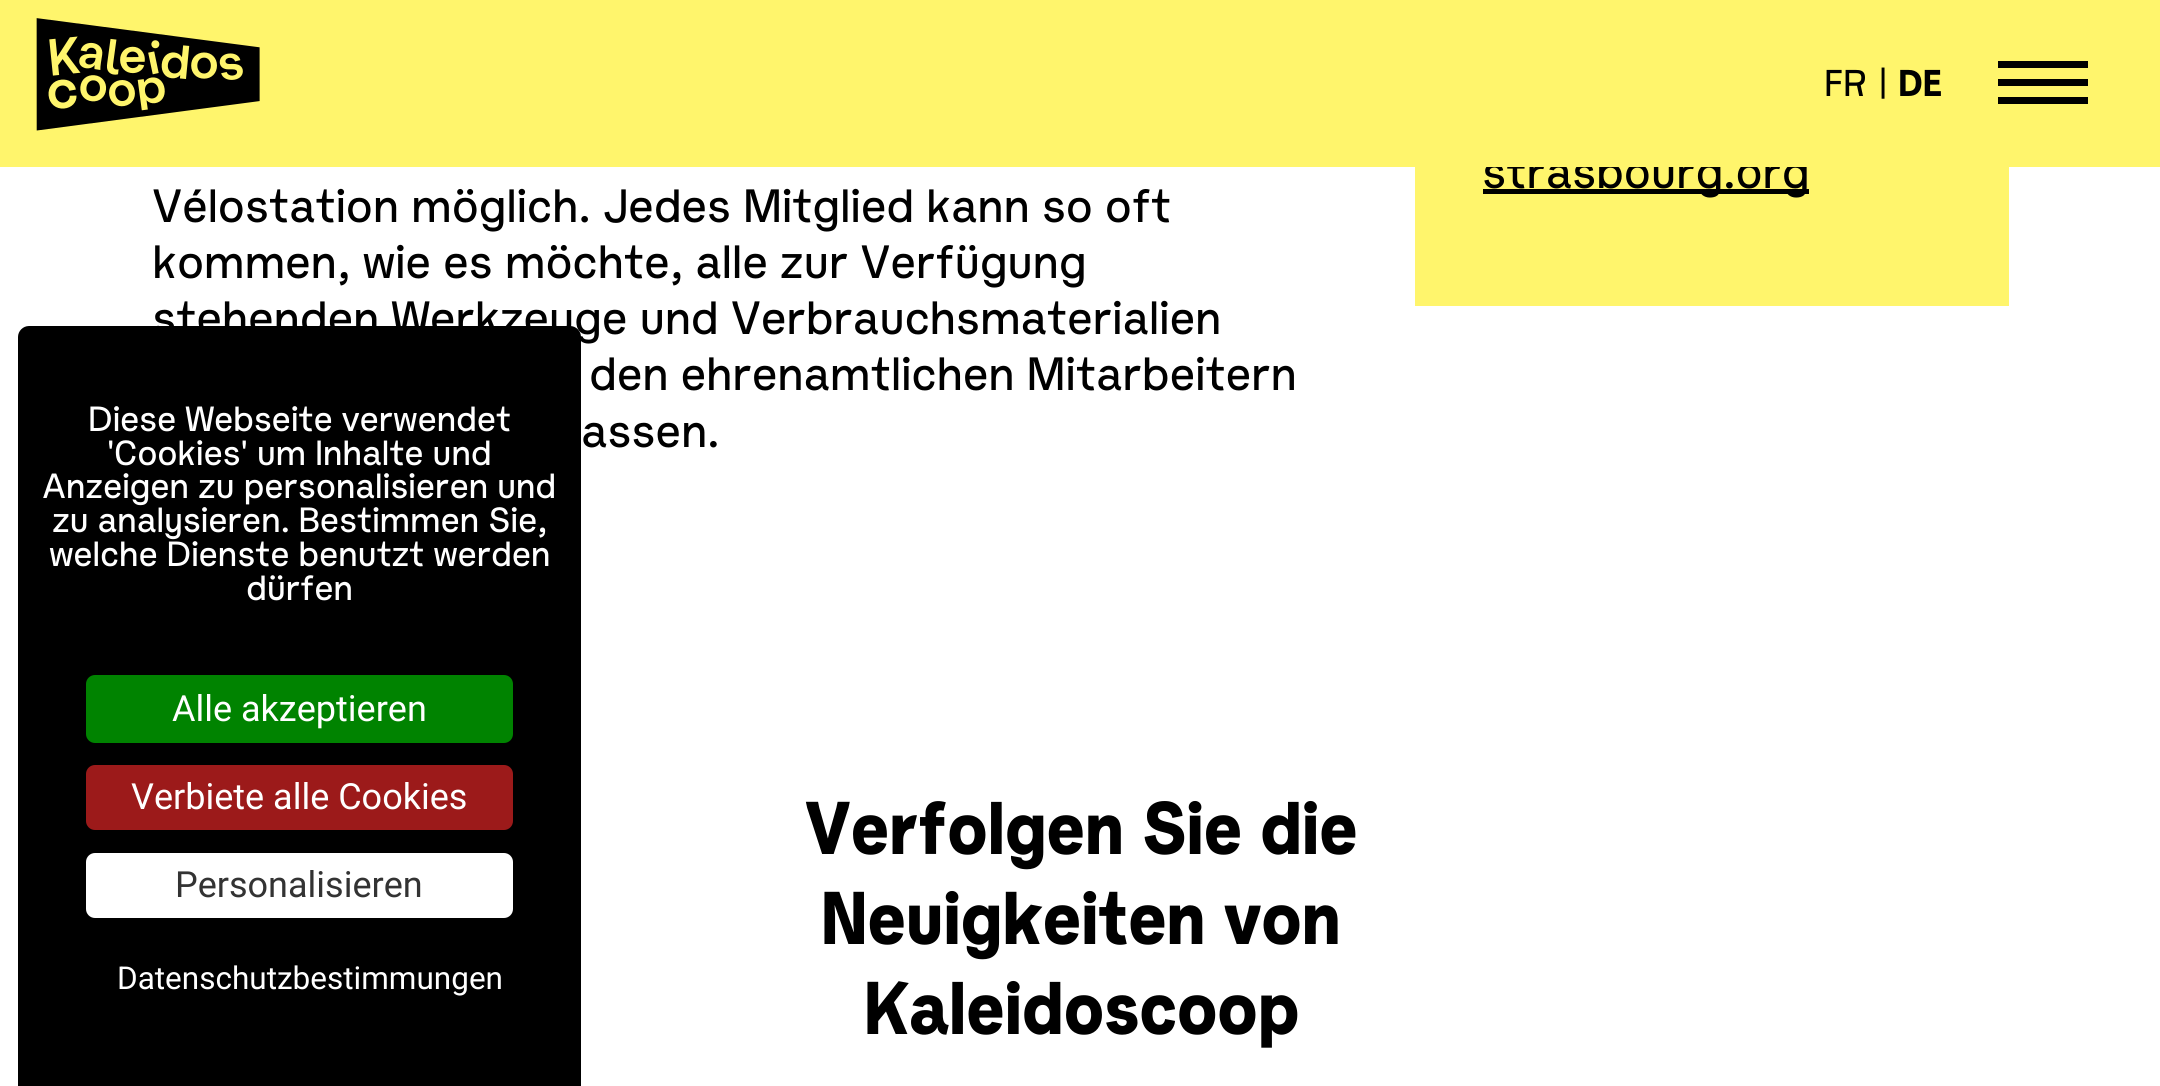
#include <cairo/cairo.h>
#include <math.h>
#include <stddef.h>

static cairo_t *cr;

static void use_color(int r, int g, int b) {
  cairo_set_source_rgb(cr, r / 255.0, g / 255.0, b / 255.0);
}

static void text(double x, double y, const char *s, const char *family, double size, int italic, int bold, int r, int g, int b) {
  cairo_select_font_face(cr, family, italic ? CAIRO_FONT_SLANT_ITALIC : CAIRO_FONT_SLANT_NORMAL,
    bold ? CAIRO_FONT_WEIGHT_BOLD : CAIRO_FONT_WEIGHT_NORMAL);
  cairo_set_font_size(cr, size);
  use_color(r, g, b);
  cairo_move_to(cr, x, y);
  cairo_show_text(cr, s);
}

static void spaced_text(double x, double y, const char *s, double letter, double word) {
  cairo_move_to(cr, x, y);
  while (*s) {
    char ch[5] = {0};
    int n = 0;
    do ch[n++] = *s++; while ((*s & 0xC0) == 0x80);
    cairo_show_text(cr, ch);
    cairo_rel_move_to(cr, letter + word * (*ch == ' '), 0);
  }
}

static void box(double x, double y, double w, double h, int r, int g, int b) {
  use_color(r, g, b);
  cairo_rectangle(cr, x, y, w, h);
  cairo_fill(cr);
}

static void round_rect(double x, double y, double w, double h, double r) {
  cairo_new_sub_path(cr);
  cairo_arc(cr, x + w - r, y + h - r, r, 0, M_PI / 2);
  cairo_arc(cr, x + r, y + h - r, r, M_PI / 2, M_PI);
  cairo_arc(cr, x + r, y + r, r, M_PI, 1.5 * M_PI);
  cairo_arc(cr, x + w - r, y + r, r, 1.5 * M_PI, 2 * M_PI);
  cairo_close_path(cr);
}

static void picture(const char *path, double x, double y, double w, double h) {
  cairo_surface_t *image = cairo_image_surface_create_from_png(path);
  cairo_save(cr);
  cairo_set_source_surface(cr, image, x, y);
  cairo_rectangle(cr, x, y, w, h);
  cairo_fill(cr);
  cairo_restore(cr);
  cairo_surface_destroy(image);
}

static void draw(void) {
  use_color(255, 255, 255);
  cairo_paint(cr);
  box(1415, 167, 594, 139, 255, 245, 108);
  box(1483, 189, 326, 5, 0, 0, 0);
  cairo_new_path(cr);
  cairo_move_to(cr, 29, 326);
  cairo_line_to(cr, 570, 326);
  cairo_curve_to(cr, 576, 326, 581, 331, 581, 337);
  cairo_line_to(cr, 581, 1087);
  cairo_line_to(cr, 18, 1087);
  cairo_line_to(cr, 18, 337);
  cairo_curve_to(cr, 18, 331, 23, 326, 29, 326);
  cairo_close_path(cr);
  cairo_fill(cr);
  use_color(0, 131, 0);
  round_rect(86, 675, 427, 68, 9);
  cairo_fill(cr);
  use_color(156, 26, 26);
  round_rect(86, 765, 427, 65, 9);
  cairo_fill(cr);
  use_color(255, 255, 255);
  round_rect(86, 853, 427, 65, 9);
  cairo_fill(cr);
  cairo_select_font_face(cr, "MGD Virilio", CAIRO_FONT_SLANT_NORMAL, CAIRO_FONT_WEIGHT_NORMAL);
  cairo_set_font_size(cr, 45);
  use_color(0, 0, 0);
  spaced_text(1482, 188, "strasbourg.org", -0.35, 0);
  box(0, 0, 2160, 167, 255, 245, 108);
  picture("img_01.png", 36, 18, 224, 113);
  box(1998, 97, 90, 7, 0, 0, 0);
  box(1998, 61, 90, 7, 0, 0, 0);
  box(1998, 79, 90, 7, 0, 0, 0);
  cairo_select_font_face(cr, "MGD Virilio Black", CAIRO_FONT_SLANT_NORMAL, CAIRO_FONT_WEIGHT_NORMAL);
  cairo_set_font_size(cr, 36);
  spaced_text(1898, 96, "DE", -0.35, 0);
  cairo_select_font_face(cr, "MGD Virilio", CAIRO_FONT_SLANT_NORMAL, CAIRO_FONT_WEIGHT_NORMAL);
  spaced_text(1879, 94, "|", -0.35, 0);
  spaced_text(1824, 96, "FR", -0.35, 0);
  cairo_set_font_size(cr, 45);
  spaced_text(152, 222, "Vélostation möglich. Jedes Mitglied kann so oft", -0.35, 0);
  spaced_text(152, 278, "kommen, wie es möchte, alle zur Verfügung", -0.35, 0);
  spaced_text(152, 334, "stehenden Werkzeuge und Verbrauchsmaterialien", -0.35, 0);
  spaced_text(589, 390, "den ehrenamtlichen Mitarbeitern", -0.35, 0);
  spaced_text(581, 447, "assen.", -0.35, 0);
  cairo_select_font_face(cr, "MGD Virilio Black", CAIRO_FONT_SLANT_NORMAL, CAIRO_FONT_WEIGHT_NORMAL);
  cairo_set_font_size(cr, 72);
  spaced_text(804, 854, "Verfolgen Sie die", -1.75, 0);
  spaced_text(820, 944, "Neuigkeiten von", -1.75, 0);
  spaced_text(863, 1034, "Kaleidoscoop", -1.75, 0);
  cairo_select_font_face(cr, "MGD Virilio", CAIRO_FONT_SLANT_NORMAL, CAIRO_FONT_WEIGHT_NORMAL);
  cairo_set_font_size(cr, 33.75);
  use_color(255, 255, 255);
  spaced_text(88, 431, "Diese Webseite verwendet", -0.35, 0);
  spaced_text(107, 465, "'Cookies' um Inhalte und", -0.35, 0);
  spaced_text(42, 498, "Anzeigen zu personalisieren und", -0.35, 0);
  spaced_text(52, 532, "zu analysieren. Bestimmen Sie,", -0.35, 0);
  spaced_text(49, 566, "welche Dienste benutzt werden", -0.35, 0);
  spaced_text(246, 600, "dürfen", -0.35, 0);
  text(172, 721, "Alle akzeptieren", "Roboto", 36, 0, 0, 255, 255, 255);
  text(131, 809, "Verbiete alle Cookies", "Roboto", 36, 0, 0, 255, 255, 255);
  text(175, 897, "Personalisieren", "Roboto", 36, 0, 0, 51, 51, 51);
  text(117, 989, "Datenschutzbestimmungen", "Roboto", 31.5, 0, 0, 255, 255, 255);
}

int main(void) {
  cairo_surface_t *surface = cairo_image_surface_create(CAIRO_FORMAT_RGB24, 2160, 1086);
  cr = cairo_create(surface);
  cairo_font_options_t *options = cairo_font_options_create();
  cairo_font_options_set_hint_metrics(options, CAIRO_HINT_METRICS_OFF);
  cairo_font_options_set_hint_style(options, CAIRO_HINT_STYLE_NONE);
  cairo_set_font_options(cr, options);
  cairo_set_miter_limit(cr, 4);
  draw();
  cairo_surface_write_to_png(surface, "out.png");
  cairo_font_options_destroy(options);
  cairo_destroy(cr);
  cairo_surface_destroy(surface);
  return 0;
}
